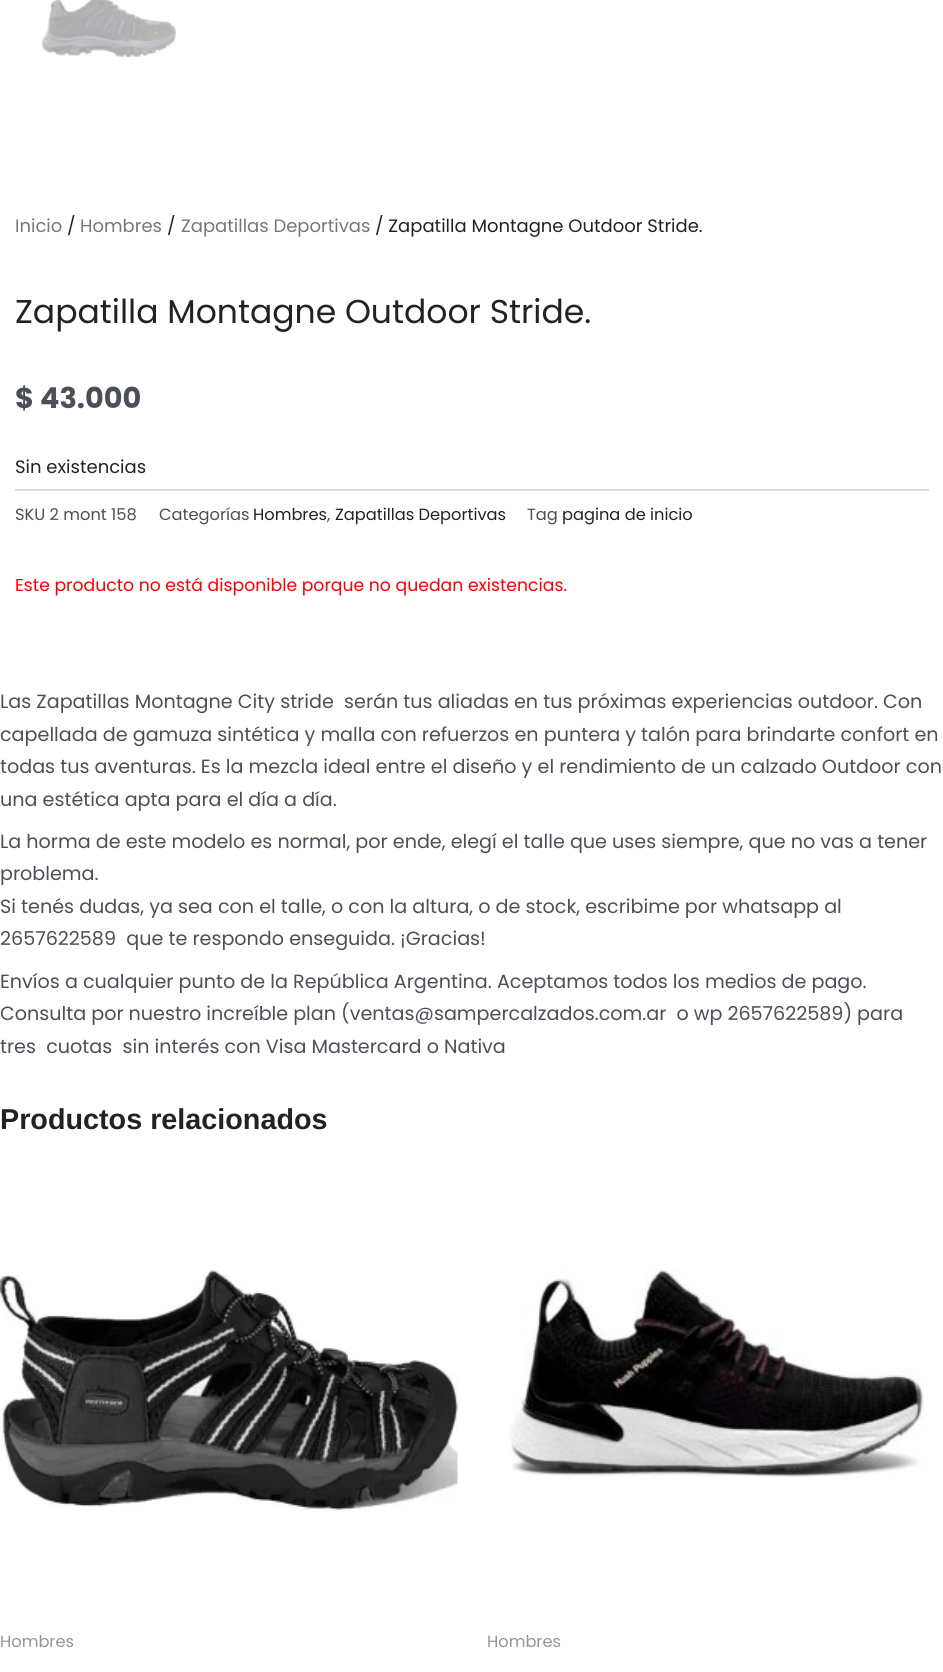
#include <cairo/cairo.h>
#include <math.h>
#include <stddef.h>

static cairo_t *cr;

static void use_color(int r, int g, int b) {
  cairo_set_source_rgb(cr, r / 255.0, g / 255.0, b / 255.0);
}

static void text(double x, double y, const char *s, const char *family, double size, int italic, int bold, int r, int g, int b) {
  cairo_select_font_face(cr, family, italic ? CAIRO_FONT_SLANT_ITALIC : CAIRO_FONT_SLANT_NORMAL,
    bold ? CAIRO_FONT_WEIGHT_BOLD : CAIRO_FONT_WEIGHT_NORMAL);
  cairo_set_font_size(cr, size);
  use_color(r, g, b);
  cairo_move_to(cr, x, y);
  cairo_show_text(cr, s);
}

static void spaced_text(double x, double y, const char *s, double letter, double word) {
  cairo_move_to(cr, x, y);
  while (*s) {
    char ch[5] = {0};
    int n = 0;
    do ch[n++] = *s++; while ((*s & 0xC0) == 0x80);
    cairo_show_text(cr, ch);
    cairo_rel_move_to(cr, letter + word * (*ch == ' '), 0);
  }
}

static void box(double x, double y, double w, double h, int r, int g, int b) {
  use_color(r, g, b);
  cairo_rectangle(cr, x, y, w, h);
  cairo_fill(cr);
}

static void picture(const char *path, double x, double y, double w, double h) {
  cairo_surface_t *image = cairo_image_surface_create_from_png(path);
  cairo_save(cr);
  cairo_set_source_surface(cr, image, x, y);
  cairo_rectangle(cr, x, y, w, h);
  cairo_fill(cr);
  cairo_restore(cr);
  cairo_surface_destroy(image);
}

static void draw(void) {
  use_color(255, 255, 255);
  cairo_paint(cr);
  picture("img_01.png", 41, 0, 135, 57);
  box(15, 489, 914, 2, 221, 221, 221);
  picture("img_02.png", 0, 1269, 458, 243);
  picture("img_03.png", 509, 1269, 416, 208);
  text(15, 232, "Inicio", "Poppins", 18, 0, 0, 119, 119, 119);
  text(67, 232, "/", "Poppins", 18, 0, 0, 34, 34, 34);
  text(80, 232, "Hombres", "Poppins", 18, 0, 0, 119, 119, 119);
  text(167, 232, "/", "Poppins", 18, 0, 0, 34, 34, 34);
  text(181, 232, "Zapatillas Deportivas", "Poppins", 18, 0, 0, 119, 119, 119);
  text(375, 232, "/ Zapatilla Montagne Outdoor Stride.", "Poppins", 18, 0, 0, 34, 34, 34);
  text(15, 323, "Zapatilla Montagne Outdoor Stride.", "Poppins", 33, 0, 0, 34, 34, 34);
  text(15, 408, "$ 43.000", "Poppins", 28.75, 0, 1, 75, 79, 88);
  text(15, 473, "Sin existencias", "Poppins", 18, 0, 0, 34, 34, 34);
  text(15, 520, "SKU 2 mont 158", "Poppins", 16.25, 0, 0, 75, 79, 88);
  text(159, 520, "Categorías", "Poppins", 16.25, 0, 0, 75, 79, 88);
  text(253, 520, "Hombres", "Poppins", 16.25, 0, 0, 34, 34, 34);
  text(327, 520, ",", "Poppins", 16.25, 0, 0, 75, 79, 88);
  text(335, 520, "Zapatillas Deportivas", "Poppins", 16.25, 0, 0, 34, 34, 34);
  text(527, 520, "Tag", "Poppins", 16.25, 0, 0, 75, 79, 88);
  text(562, 520, "pagina de inicio", "Poppins", 16.25, 0, 0, 34, 34, 34);
  text(15, 591, "Este producto no está disponible porque no quedan existencias.", "Poppins", 17.25, 0, 0, 255, 0, 0);
  text(0, 708, "Las Zapatillas Montagne City stride  serán tus aliadas en tus próximas experiencias outdoor. Con", "Poppins", 19.15, 0, 0, 75, 79, 88);
  text(0, 741, "capellada de gamuza sintética y malla con refuerzos en puntera y talón para brindarte confort en", "Poppins", 19.15, 0, 0, 75, 79, 88);
  text(0, 773, "todas tus aventuras. Es la mezcla ideal entre el diseño y el rendimiento de un calzado Outdoor con", "Poppins", 19.15, 0, 0, 75, 79, 88);
  text(0, 806, "una estética apta para el día a día.", "Poppins", 19.15, 0, 0, 75, 79, 88);
  text(0, 848, "La horma de este modelo es normal, por ende, elegí el talle que uses siempre, que no vas a tener", "Poppins", 19.15, 0, 0, 75, 79, 88);
  text(0, 880, "problema.", "Poppins", 19.15, 0, 0, 75, 79, 88);
  text(0, 913, "Si tenés dudas, ya sea con el talle, o con la altura, o de stock, escribime por whatsapp al", "Poppins", 19.15, 0, 0, 75, 79, 88);
  text(0, 945, "2657622589  que te respondo enseguida. ¡Gracias!", "Poppins", 19.15, 0, 0, 75, 79, 88);
  text(0, 988, "Envíos a cualquier punto de la República Argentina. Aceptamos todos los medios de pago.", "Poppins", 19.15, 0, 0, 75, 79, 88);
  spaced_text(0, 1020, "Consulta por nuestro increíble plan (ventas@sampercalzados.com.ar  o wp 2657622589) para", 0, -0.1);
  text(0, 1053, "tres  cuotas  sin interés con Visa Mastercard o Nativa", "Poppins", 19.15, 0, 0, 75, 79, 88);
  text(0, 1129, "Productos relacionados", "Liberation Sans", 28.75, 0, 1, 34, 34, 34);
  text(0, 1647, "Hombres", "Poppins", 16.25, 0, 0, 147, 149, 155);
  text(487, 1647, "Hombres", "Poppins", 16.25, 0, 0, 147, 149, 155);
}

int main(void) {
  cairo_surface_t *surface = cairo_image_surface_create(CAIRO_FORMAT_RGB24, 943, 1672);
  cr = cairo_create(surface);
  cairo_font_options_t *options = cairo_font_options_create();
  cairo_font_options_set_hint_metrics(options, CAIRO_HINT_METRICS_OFF);
  cairo_font_options_set_hint_style(options, CAIRO_HINT_STYLE_NONE);
  cairo_set_font_options(cr, options);
  cairo_set_miter_limit(cr, 4);
  draw();
  cairo_surface_write_to_png(surface, "out.png");
  cairo_font_options_destroy(options);
  cairo_destroy(cr);
  cairo_surface_destroy(surface);
  return 0;
}
